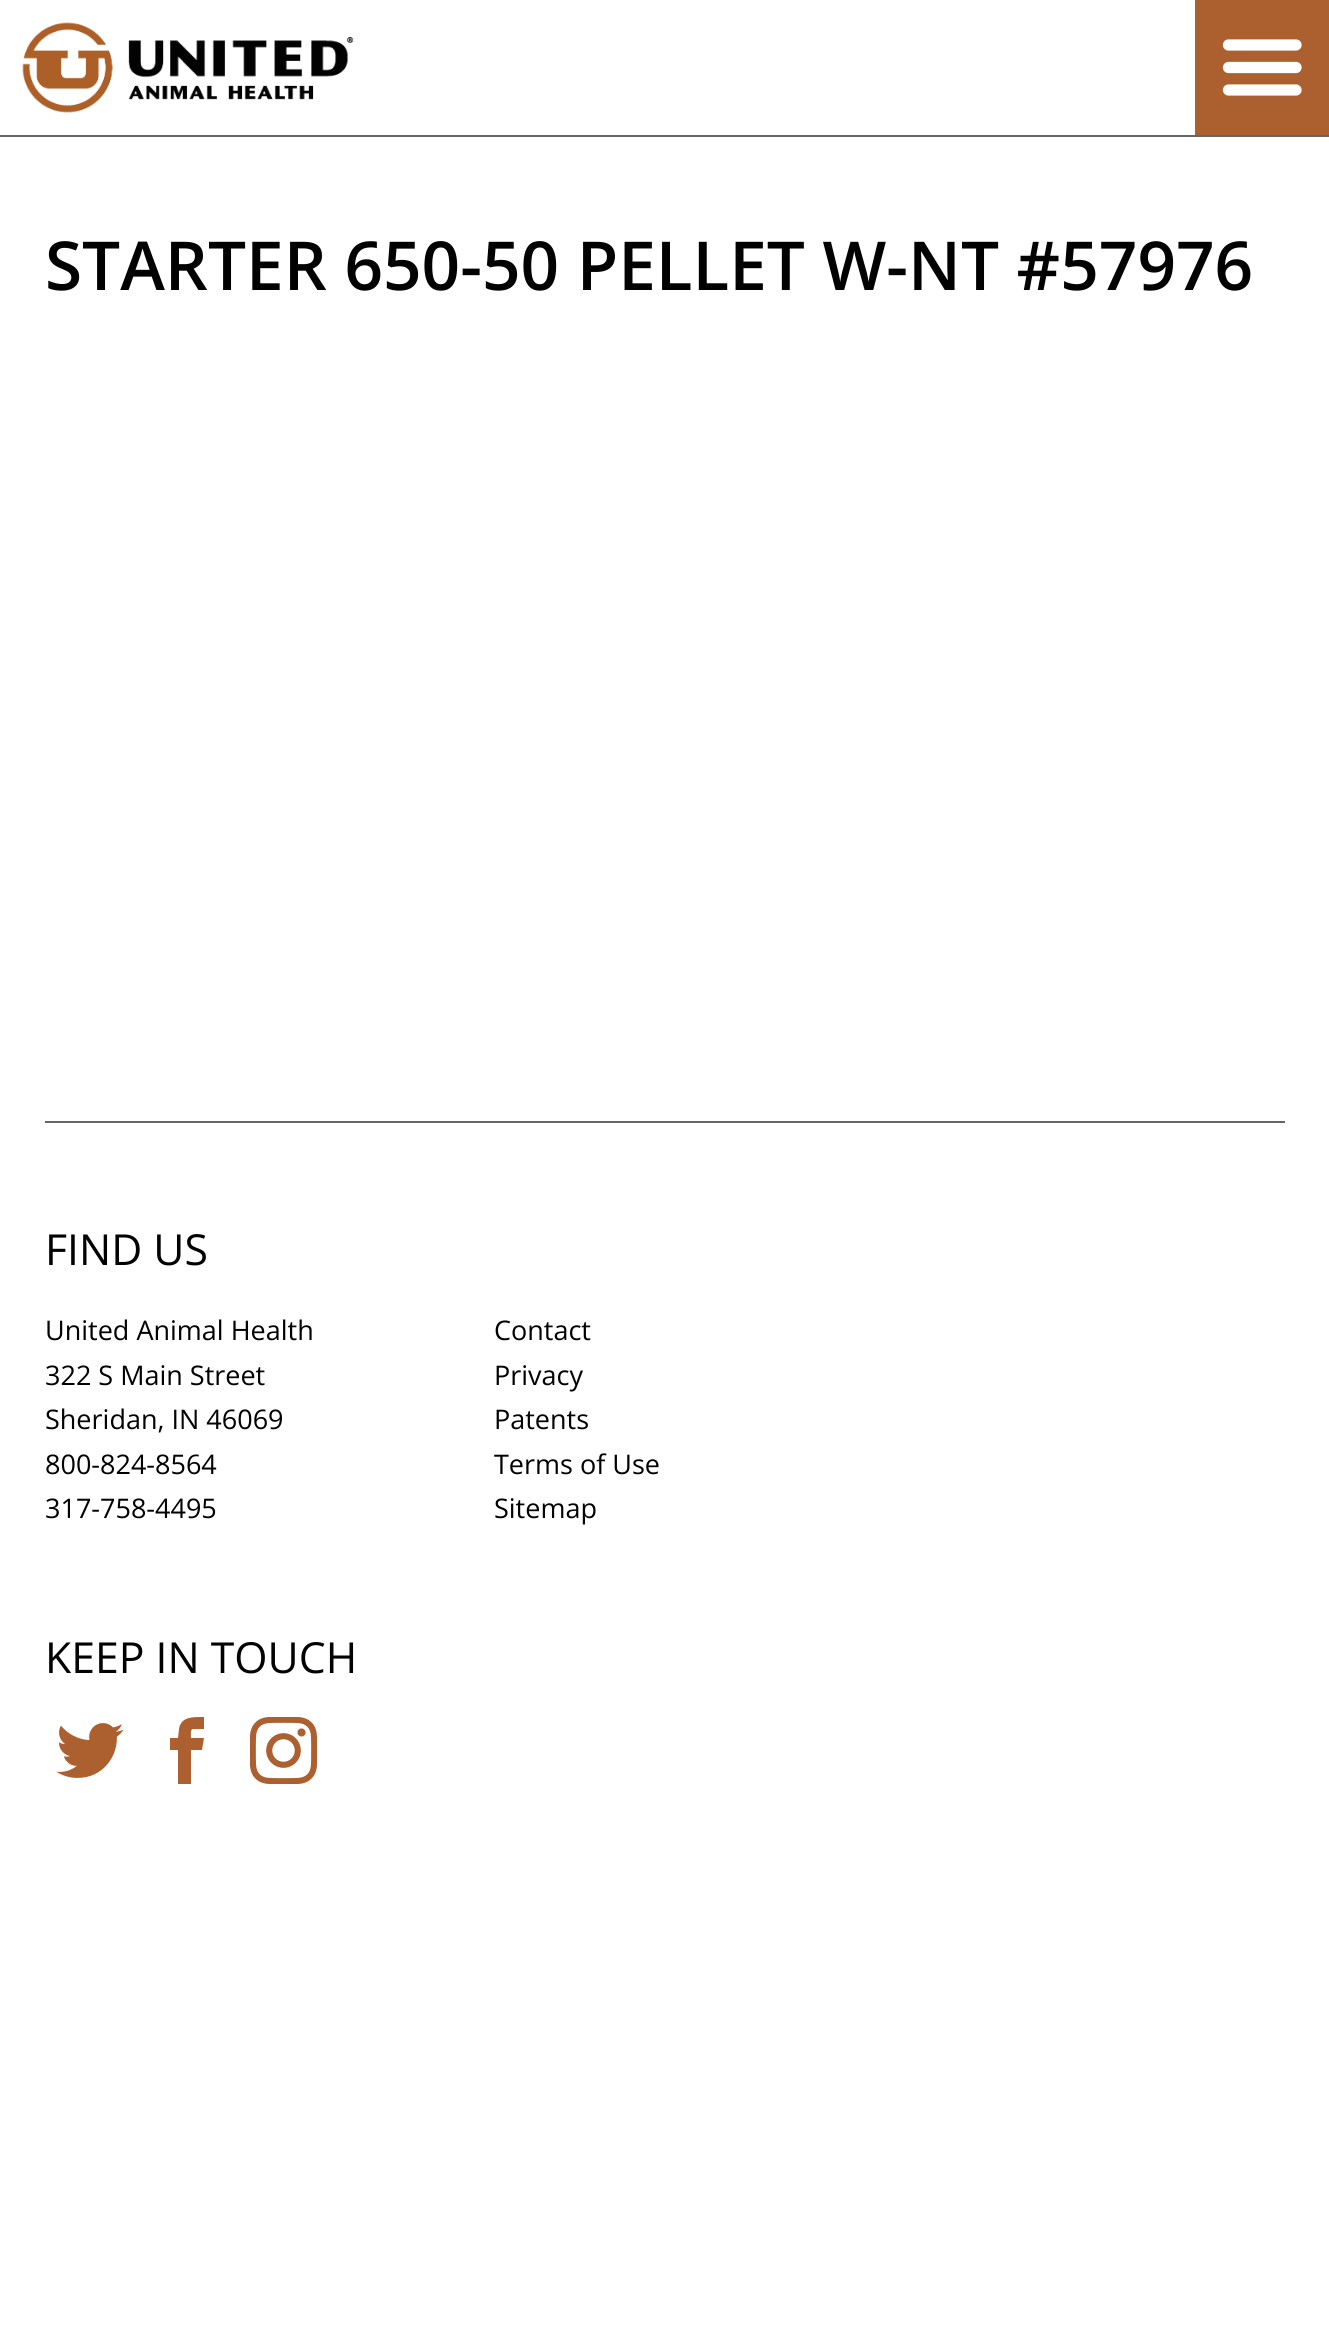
#include <cairo/cairo.h>
#include <math.h>
#include <stddef.h>

static cairo_t *cr;

static void use_color(int r, int g, int b) {
  cairo_set_source_rgb(cr, r / 255.0, g / 255.0, b / 255.0);
}

static void text(double x, double y, const char *s, const char *family, double size, int italic, int bold, int r, int g, int b) {
  cairo_select_font_face(cr, family, italic ? CAIRO_FONT_SLANT_ITALIC : CAIRO_FONT_SLANT_NORMAL,
    bold ? CAIRO_FONT_WEIGHT_BOLD : CAIRO_FONT_WEIGHT_NORMAL);
  cairo_set_font_size(cr, size);
  use_color(r, g, b);
  cairo_move_to(cr, x, y);
  cairo_show_text(cr, s);
}

static void box(double x, double y, double w, double h, int r, int g, int b) {
  use_color(r, g, b);
  cairo_rectangle(cr, x, y, w, h);
  cairo_fill(cr);
}

static void picture(const char *path, double x, double y, double w, double h) {
  cairo_surface_t *image = cairo_image_surface_create_from_png(path);
  cairo_save(cr);
  cairo_set_source_surface(cr, image, x, y);
  cairo_rectangle(cr, x, y, w, h);
  cairo_fill(cr);
  cairo_restore(cr);
  cairo_surface_destroy(image);
}

static void draw(void) {
  use_color(255, 255, 255);
  cairo_paint(cr);
  box(0, 135, 1329, 2, 102, 102, 102);
  picture("img_01.png", 22, 22, 332, 91);
  box(1195, 0, 134, 135, 172, 96, 47);
  picture("img_02.png", 1222, 39, 80, 57);
  box(45, 1121, 1240, 2, 102, 102, 102);
  picture("img_03.png", 56, 1723, 68, 55);
  use_color(172, 96, 47);
  cairo_new_path(cr);
  cairo_move_to(cr, 193, 1729);
  cairo_line_to(cr, 204, 1729);
  cairo_line_to(cr, 204, 1717);
  cairo_curve_to(cr, 194, 1717, 181, 1716, 179, 1729);
  cairo_line_to(cr, 178, 1738);
  cairo_line_to(cr, 170, 1738);
  cairo_line_to(cr, 170, 1750);
  cairo_line_to(cr, 178, 1750);
  cairo_line_to(cr, 178, 1784);
  cairo_line_to(cr, 191, 1784);
  cairo_line_to(cr, 191, 1750);
  cairo_line_to(cr, 202, 1750);
  cairo_line_to(cr, 204, 1738);
  cairo_line_to(cr, 191, 1738);
  cairo_curve_to(cr, 191, 1736, 190, 1729, 193, 1729);
  cairo_close_path(cr);
  cairo_fill(cr);
  picture("img_04.png", 250, 1717, 67, 67);
  text(45, 290, "STARTER 650-50 PELLET W-NT #57976", "Open Sans SemiBold", 67.5, 0, 0, 1, 1, 1);
  text(45, 1265, "FIND US", "Open Sans", 42.75, 0, 0, 1, 1, 1);
  text(45, 1340, "United Animal Health", "Open Sans", 27, 0, 0, 1, 1, 1);
  text(45, 1385, "322 S Main Street", "Open Sans", 27, 0, 0, 1, 1, 1);
  text(45, 1429, "Sheridan, IN 46069", "Open Sans", 27, 0, 0, 1, 1, 1);
  text(45, 1474, "800-824-8564", "Open Sans", 27, 0, 0, 1, 1, 1);
  text(45, 1518, "317-758-4495", "Open Sans", 27, 0, 0, 1, 1, 1);
  text(494, 1340, "Contact", "Open Sans", 27, 0, 0, 1, 1, 1);
  text(494, 1385, "Privacy", "Open Sans", 27, 0, 0, 1, 1, 1);
  text(494, 1429, "Patents", "Open Sans", 27, 0, 0, 1, 1, 1);
  text(494, 1474, "Terms of Use", "Open Sans", 27, 0, 0, 1, 1, 1);
  text(494, 1518, "Sitemap", "Open Sans", 27, 0, 0, 1, 1, 1);
  text(45, 1673, "KEEP IN TOUCH", "Open Sans", 42.75, 0, 0, 1, 1, 1);
}

int main(void) {
  cairo_surface_t *surface = cairo_image_surface_create(CAIRO_FORMAT_RGB24, 1329, 2340);
  cr = cairo_create(surface);
  cairo_font_options_t *options = cairo_font_options_create();
  cairo_font_options_set_hint_metrics(options, CAIRO_HINT_METRICS_OFF);
  cairo_font_options_set_hint_style(options, CAIRO_HINT_STYLE_NONE);
  cairo_set_font_options(cr, options);
  cairo_set_miter_limit(cr, 4);
  draw();
  cairo_surface_write_to_png(surface, "out.png");
  cairo_font_options_destroy(options);
  cairo_destroy(cr);
  cairo_surface_destroy(surface);
  return 0;
}
